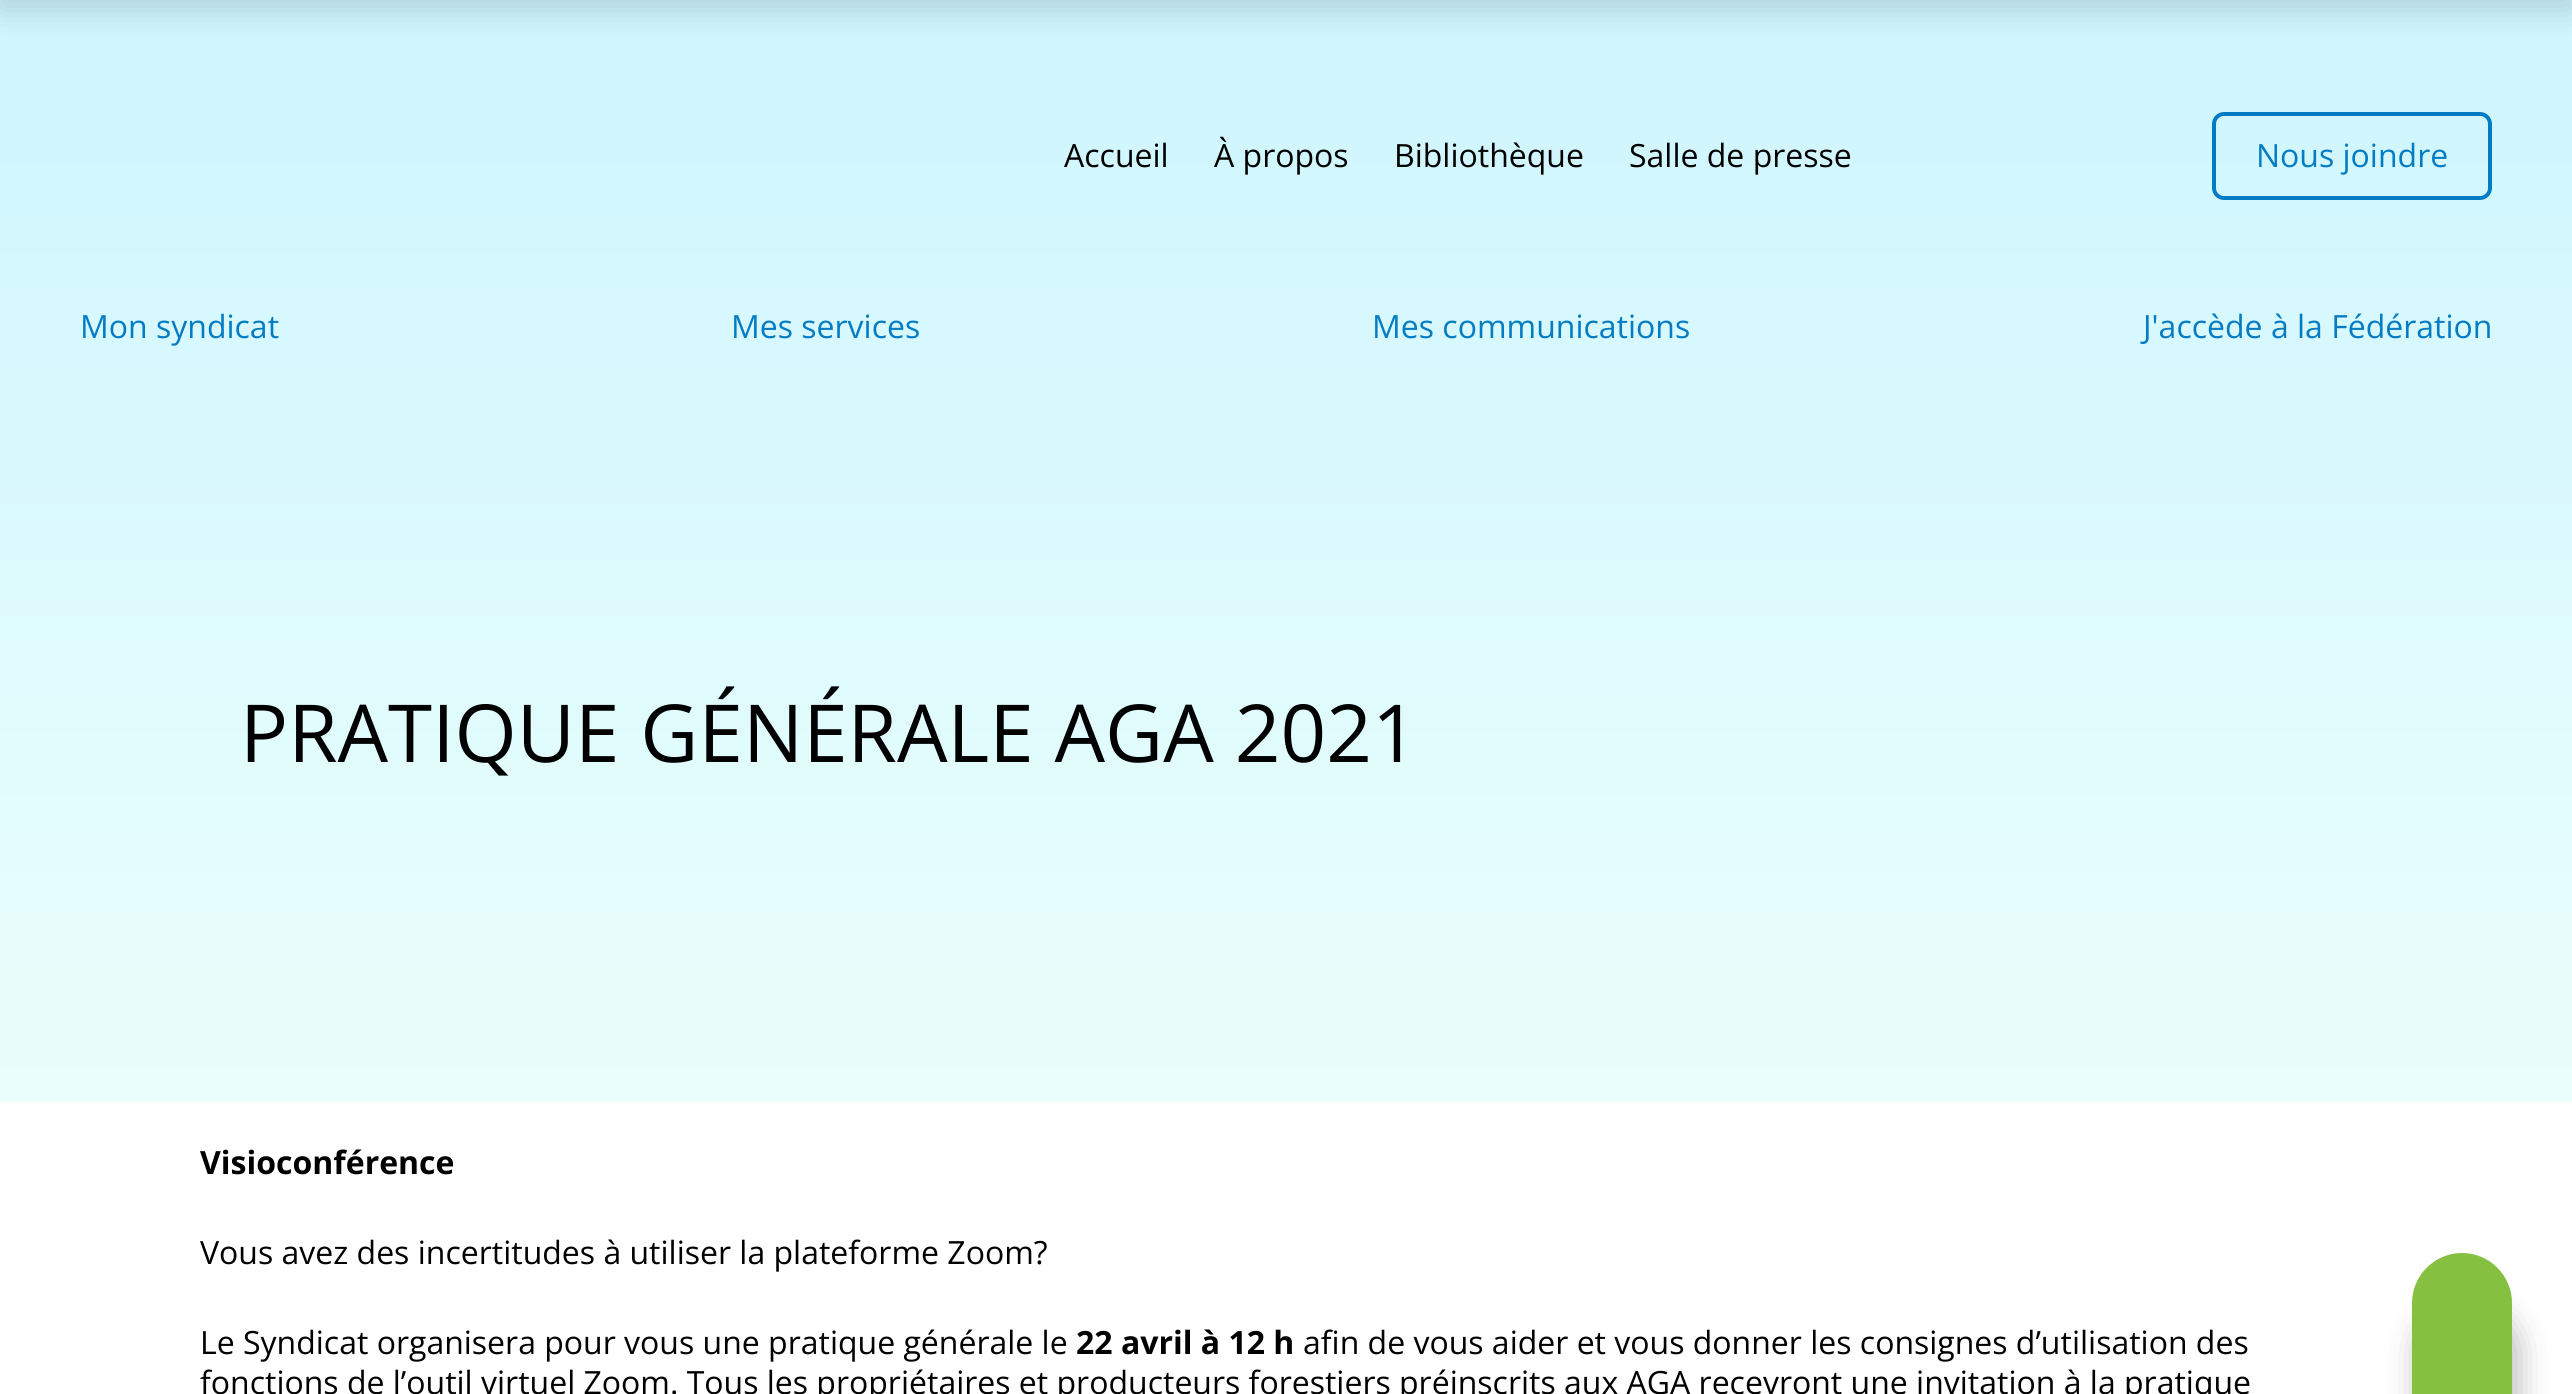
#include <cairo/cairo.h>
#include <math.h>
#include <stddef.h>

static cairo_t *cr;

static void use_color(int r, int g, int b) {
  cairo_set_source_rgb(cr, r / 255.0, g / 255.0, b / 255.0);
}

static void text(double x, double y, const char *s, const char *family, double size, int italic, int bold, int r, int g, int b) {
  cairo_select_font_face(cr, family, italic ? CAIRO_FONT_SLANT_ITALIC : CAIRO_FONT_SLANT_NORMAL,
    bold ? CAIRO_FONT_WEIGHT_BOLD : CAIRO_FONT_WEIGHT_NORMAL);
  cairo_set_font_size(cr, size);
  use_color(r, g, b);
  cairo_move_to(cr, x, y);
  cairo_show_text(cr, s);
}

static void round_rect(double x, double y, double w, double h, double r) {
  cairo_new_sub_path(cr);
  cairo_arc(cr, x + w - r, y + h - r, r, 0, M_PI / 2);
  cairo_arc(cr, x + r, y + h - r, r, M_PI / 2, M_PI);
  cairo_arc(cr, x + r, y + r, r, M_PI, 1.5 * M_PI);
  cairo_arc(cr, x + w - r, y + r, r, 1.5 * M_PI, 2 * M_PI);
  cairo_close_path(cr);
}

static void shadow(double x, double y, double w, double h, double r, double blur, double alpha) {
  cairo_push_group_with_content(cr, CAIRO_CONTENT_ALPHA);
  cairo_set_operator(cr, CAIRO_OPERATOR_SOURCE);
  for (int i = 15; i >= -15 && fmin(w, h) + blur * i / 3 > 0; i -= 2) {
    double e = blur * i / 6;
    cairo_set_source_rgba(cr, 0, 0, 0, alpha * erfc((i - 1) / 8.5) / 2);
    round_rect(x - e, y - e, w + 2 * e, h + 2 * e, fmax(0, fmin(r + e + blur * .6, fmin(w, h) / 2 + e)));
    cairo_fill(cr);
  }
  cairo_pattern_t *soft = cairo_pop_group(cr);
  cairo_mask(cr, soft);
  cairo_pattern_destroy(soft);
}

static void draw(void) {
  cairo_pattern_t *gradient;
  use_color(255, 255, 255);
  cairo_paint(cr);
  gradient = cairo_pattern_create_linear(1286, 0, 1286, 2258);
  cairo_pattern_add_color_stop_rgba(gradient, 0, 0.808, 0.961, 1, 1);
  cairo_pattern_add_color_stop_rgba(gradient, 0.5, 0.922, 1, 0.984, 1);
  cairo_pattern_add_color_stop_rgba(gradient, 1, 0.788, 0.91, 0.863, 1);
  cairo_set_source(cr, gradient);
  cairo_pattern_destroy(gradient);
  cairo_rectangle(cr, 0, 0, 2572, 1102);
  cairo_fill(cr);
  use_color(0, 0, 0);
  shadow(0, -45, 2572, 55, 0, 15, 0.15);
  round_rect(2214, 114, 276, 84, 10);
  use_color(4, 124, 196);
  cairo_set_line_width(cr, 4);
  cairo_stroke(cr);
  use_color(0, 0, 0);
  shadow(2416, 1306, 104, 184, 52, 15, 0.25);
  use_color(133, 192, 65);
  cairo_new_path(cr);
  cairo_move_to(cr, 2512, 1303);
  cairo_line_to(cr, 2512, 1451);
  cairo_line_to(cr, 2412, 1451);
  cairo_line_to(cr, 2412, 1303);
  cairo_curve_to(cr, 2412, 1276, 2434, 1253, 2462, 1253);
  cairo_curve_to(cr, 2490, 1253, 2512, 1276, 2512, 1303);
  cairo_close_path(cr);
  cairo_fill(cr);
  text(1064, 167, "Accueil", "Open Sans", 32, 0, 0, 0, 0, 0);
  text(1214, 167, "À propos", "Open Sans", 32, 0, 0, 0, 0, 0);
  text(1394, 167, "Bibliothèque", "Open Sans", 32, 0, 0, 0, 0, 0);
  text(1629, 167, "Salle de presse", "Open Sans", 32, 0, 0, 0, 0, 0);
  text(2256, 167, "Nous joindre", "Open Sans", 32, 0, 0, 4, 124, 196);
  text(80, 338, "Mon syndicat", "Open Sans", 32, 0, 0, 4, 124, 196);
  text(731, 338, "Mes services", "Open Sans", 32, 0, 0, 4, 124, 196);
  text(1372, 338, "Mes communications", "Open Sans", 32, 0, 0, 4, 124, 196);
  text(2143, 338, "J'accède à la Fédération", "Open Sans", 32, 0, 0, 4, 124, 196);
  text(240, 762, "PRATIQUE GÉNÉRALE AGA 2021", "Open Sans", 80, 0, 0, 0, 0, 0);
  text(200, 1174, "Visioconférence", "Open Sans", 32, 0, 1, 0, 0, 0);
  text(200, 1264, "Vous avez des incertitudes à utiliser la plateforme Zoom?", "Open Sans", 32, 0, 0, 0, 0, 0);
  text(200, 1354, "Le Syndicat organisera pour vous une pratique générale le", "Open Sans", 32, 0, 0, 0, 0, 0);
  text(1076, 1354, "22 avril à 12 h", "Open Sans", 32, 0, 1, 0, 0, 0);
  text(1303, 1354, "afin de vous aider et vous donner les consignes d’utilisation des", "Open Sans", 32, 0, 0, 0, 0, 0);
  text(200, 1394, "fonctions de l’outil virtuel Zoom. Tous les propriétaires et producteurs forestiers préinscrits aux AGA recevront une invitation à la pratique", "Open Sans", 32, 0, 0, 0, 0, 0);
}

int main(void) {
  cairo_surface_t *surface = cairo_image_surface_create(CAIRO_FORMAT_RGB24, 2572, 1394);
  cr = cairo_create(surface);
  cairo_font_options_t *options = cairo_font_options_create();
  cairo_font_options_set_hint_metrics(options, CAIRO_HINT_METRICS_OFF);
  cairo_font_options_set_hint_style(options, CAIRO_HINT_STYLE_NONE);
  cairo_set_font_options(cr, options);
  cairo_set_miter_limit(cr, 4);
  draw();
  cairo_surface_write_to_png(surface, "out.png");
  cairo_font_options_destroy(options);
  cairo_destroy(cr);
  cairo_surface_destroy(surface);
  return 0;
}
